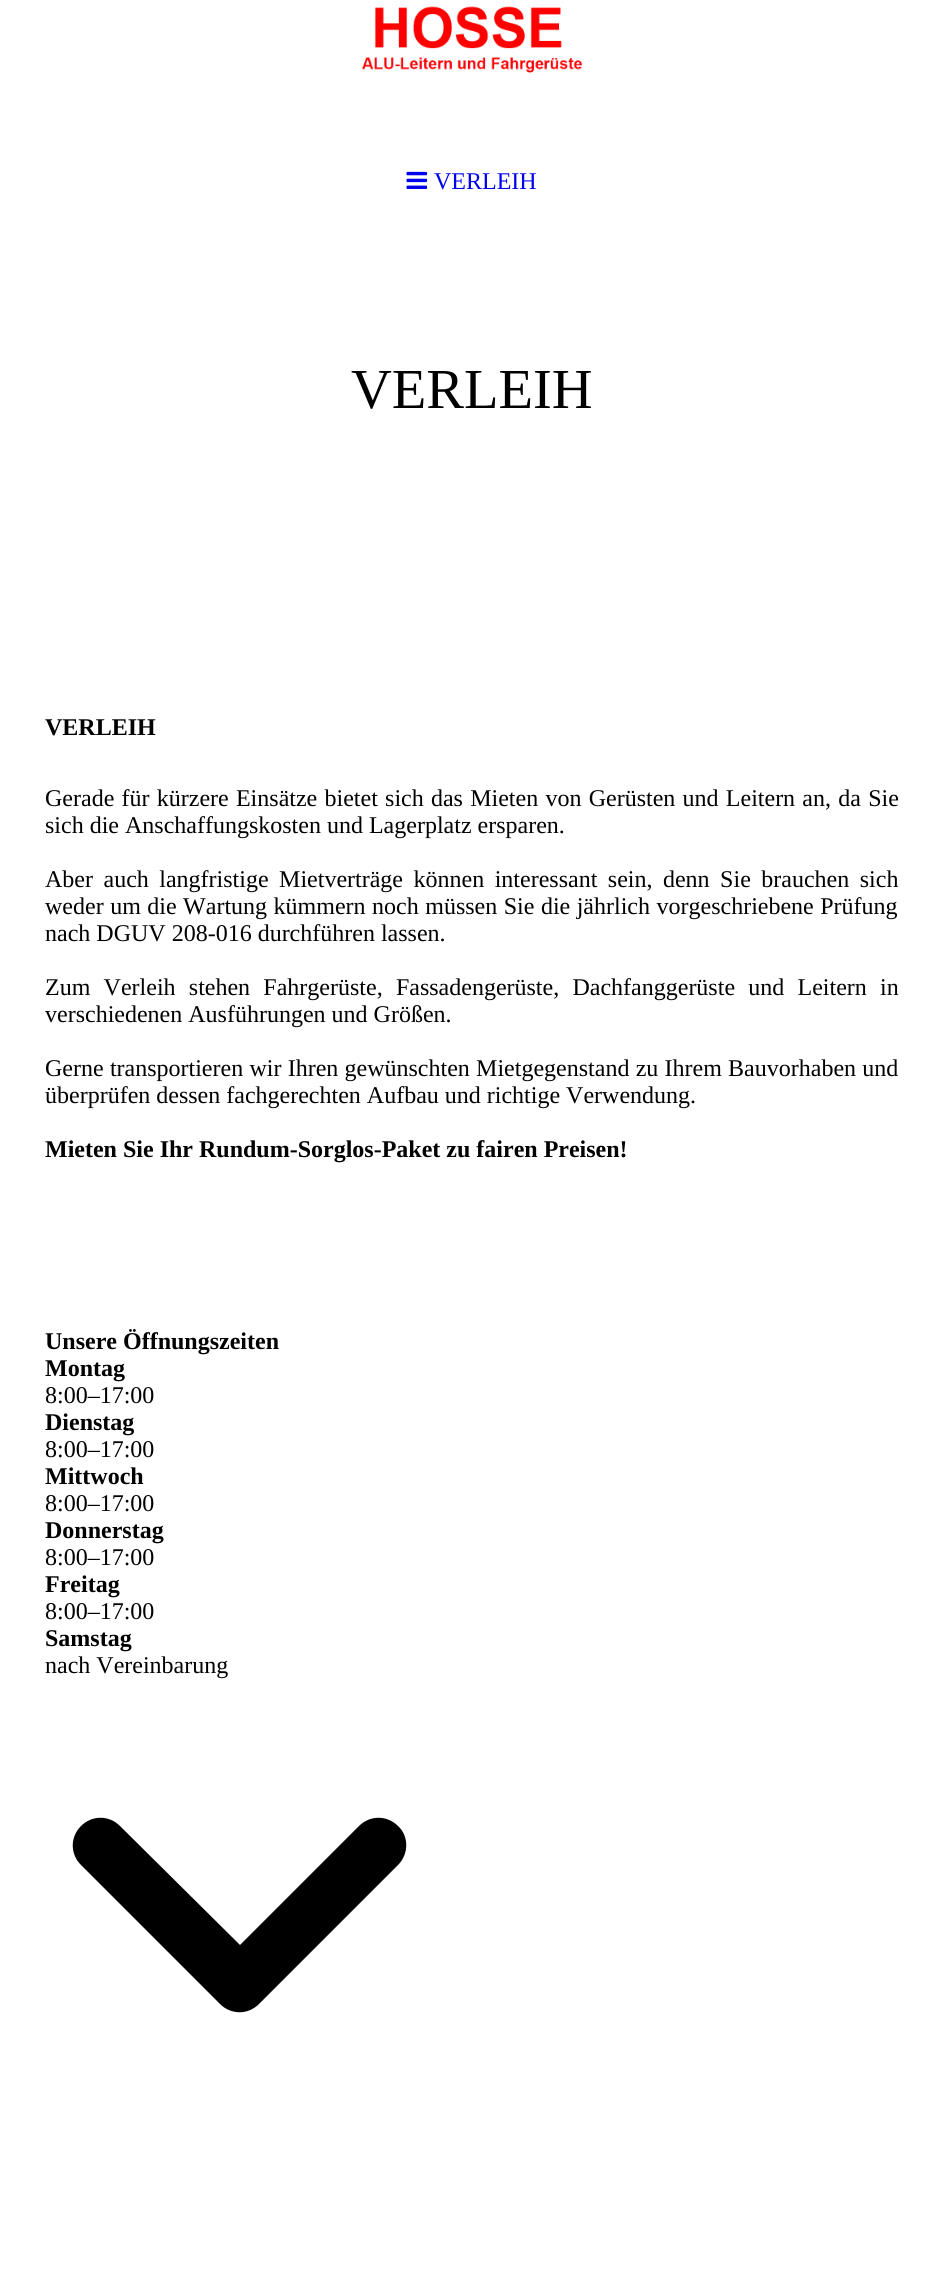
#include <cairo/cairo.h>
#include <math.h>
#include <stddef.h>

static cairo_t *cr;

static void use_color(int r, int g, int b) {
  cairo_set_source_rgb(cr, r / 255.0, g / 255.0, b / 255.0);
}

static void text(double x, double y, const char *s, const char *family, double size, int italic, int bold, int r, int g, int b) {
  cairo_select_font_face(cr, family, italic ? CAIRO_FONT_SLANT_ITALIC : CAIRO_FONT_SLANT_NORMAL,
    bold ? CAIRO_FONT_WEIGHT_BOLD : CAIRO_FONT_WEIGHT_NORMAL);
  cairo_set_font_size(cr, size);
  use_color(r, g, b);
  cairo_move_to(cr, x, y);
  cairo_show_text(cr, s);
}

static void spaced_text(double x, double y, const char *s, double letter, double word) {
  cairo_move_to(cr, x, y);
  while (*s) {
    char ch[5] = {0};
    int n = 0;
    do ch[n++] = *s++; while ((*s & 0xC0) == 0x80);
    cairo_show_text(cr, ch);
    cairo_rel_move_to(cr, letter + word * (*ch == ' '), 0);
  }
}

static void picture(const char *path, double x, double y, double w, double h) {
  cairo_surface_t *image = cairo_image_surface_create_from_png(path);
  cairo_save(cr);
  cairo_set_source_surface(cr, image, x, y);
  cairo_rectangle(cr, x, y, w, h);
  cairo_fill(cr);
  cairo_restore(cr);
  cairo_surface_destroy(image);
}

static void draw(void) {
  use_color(255, 255, 255);
  cairo_paint(cr);
  picture("img_01.png", 361, 6, 222, 67);
  picture("img_02.png", 406, 171, 22, 18);
  use_color(0, 0, 0);
  cairo_new_path(cr);
  cairo_move_to(cr, 220, 2004);
  cairo_curve_to(cr, 231, 2015, 248, 2015, 259, 2004);
  cairo_line_to(cr, 398, 1865);
  cairo_curve_to(cr, 409, 1854, 409, 1836, 398, 1826);
  cairo_curve_to(cr, 387, 1815, 370, 1815, 359, 1826);
  cairo_line_to(cr, 240, 1945);
  cairo_line_to(cr, 120, 1826);
  cairo_curve_to(cr, 109, 1815, 92, 1815, 81, 1826);
  cairo_curve_to(cr, 70, 1837, 70, 1854, 81, 1865);
  cairo_close_path(cr);
  cairo_fill(cr);
  text(434, 189, "VERLEIH", "Liberation Serif", 24, 0, 0, 0, 0, 238);
  text(351, 408, "VERLEIH", "Liberation Serif", 56.5, 0, 0, 0, 0, 0);
  text(45, 735, "VERLEIH", "Liberation Serif", 24, 0, 1, 0, 0, 0);
  cairo_select_font_face(cr, "Liberation Serif", CAIRO_FONT_SLANT_NORMAL, CAIRO_FONT_WEIGHT_NORMAL);
  spaced_text(45, 806, "Gerade für kürzere Einsätze bietet sich das Mieten von Gerüsten und Leitern an, da Sie", 0, 1.25);
  text(45, 833, "sich die Anschaffungskosten und Lagerplatz ersparen.", "Liberation Serif", 24, 0, 0, 0, 0, 0);
  spaced_text(45, 887, "Aber auch langfristige Mietverträge können interessant sein, denn Sie brauchen sich", 0, 4.5);
  spaced_text(45, 914, "weder um die Wartung kümmern noch müssen Sie die jährlich vorgeschriebene Prüfung", 0, 0.5);
  text(45, 941, "nach DGUV 208-016 durchführen lassen.", "Liberation Serif", 24, 0, 0, 0, 0, 0);
  spaced_text(45, 995, "Zum Verleih stehen Fahrgerüste, Fassadengerüste, Dachfanggerüste und Leitern in", 0, 7.25);
  text(45, 1022, "verschiedenen Ausführungen und Größen.", "Liberation Serif", 24, 0, 0, 0, 0, 0);
  spaced_text(45, 1076, "Gerne transportieren wir Ihren gewünschten Mietgegenstand zu Ihrem Bauvorhaben und", 0, 0.25);
  text(45, 1103, "überprüfen dessen fachgerechten Aufbau und richtige Verwendung.", "Liberation Serif", 24, 0, 0, 0, 0, 0);
  text(45, 1157, "Mieten Sie Ihr Rundum-Sorglos-Paket zu fairen Preisen!", "Liberation Serif", 24, 0, 1, 0, 0, 0);
  text(45, 1349, "Unsere Öffnungszeiten", "Liberation Serif", 24, 0, 1, 0, 0, 0);
  text(45, 1376, "Montag", "Liberation Serif", 24, 0, 1, 0, 0, 0);
  text(45, 1403, "8:00–17:00", "Liberation Serif", 24, 0, 0, 0, 0, 0);
  text(45, 1430, "Dienstag", "Liberation Serif", 24, 0, 1, 0, 0, 0);
  text(45, 1457, "8:00–17:00", "Liberation Serif", 24, 0, 0, 0, 0, 0);
  text(45, 1484, "Mittwoch", "Liberation Serif", 24, 0, 1, 0, 0, 0);
  text(45, 1511, "8:00–17:00", "Liberation Serif", 24, 0, 0, 0, 0, 0);
  text(45, 1538, "Donnerstag", "Liberation Serif", 24, 0, 1, 0, 0, 0);
  text(45, 1565, "8:00–17:00", "Liberation Serif", 24, 0, 0, 0, 0, 0);
  text(45, 1592, "Freitag", "Liberation Serif", 24, 0, 1, 0, 0, 0);
  text(45, 1619, "8:00–17:00", "Liberation Serif", 24, 0, 0, 0, 0, 0);
  text(45, 1646, "Samstag", "Liberation Serif", 24, 0, 1, 0, 0, 0);
  text(45, 1673, "nach Vereinbarung", "Liberation Serif", 24, 0, 0, 0, 0, 0);
}

int main(void) {
  cairo_surface_t *surface = cairo_image_surface_create(CAIRO_FORMAT_RGB24, 943, 2285);
  cr = cairo_create(surface);
  cairo_font_options_t *options = cairo_font_options_create();
  cairo_font_options_set_hint_metrics(options, CAIRO_HINT_METRICS_OFF);
  cairo_font_options_set_hint_style(options, CAIRO_HINT_STYLE_NONE);
  cairo_set_font_options(cr, options);
  cairo_set_miter_limit(cr, 4);
  draw();
  cairo_surface_write_to_png(surface, "out.png");
  cairo_font_options_destroy(options);
  cairo_destroy(cr);
  cairo_surface_destroy(surface);
  return 0;
}
